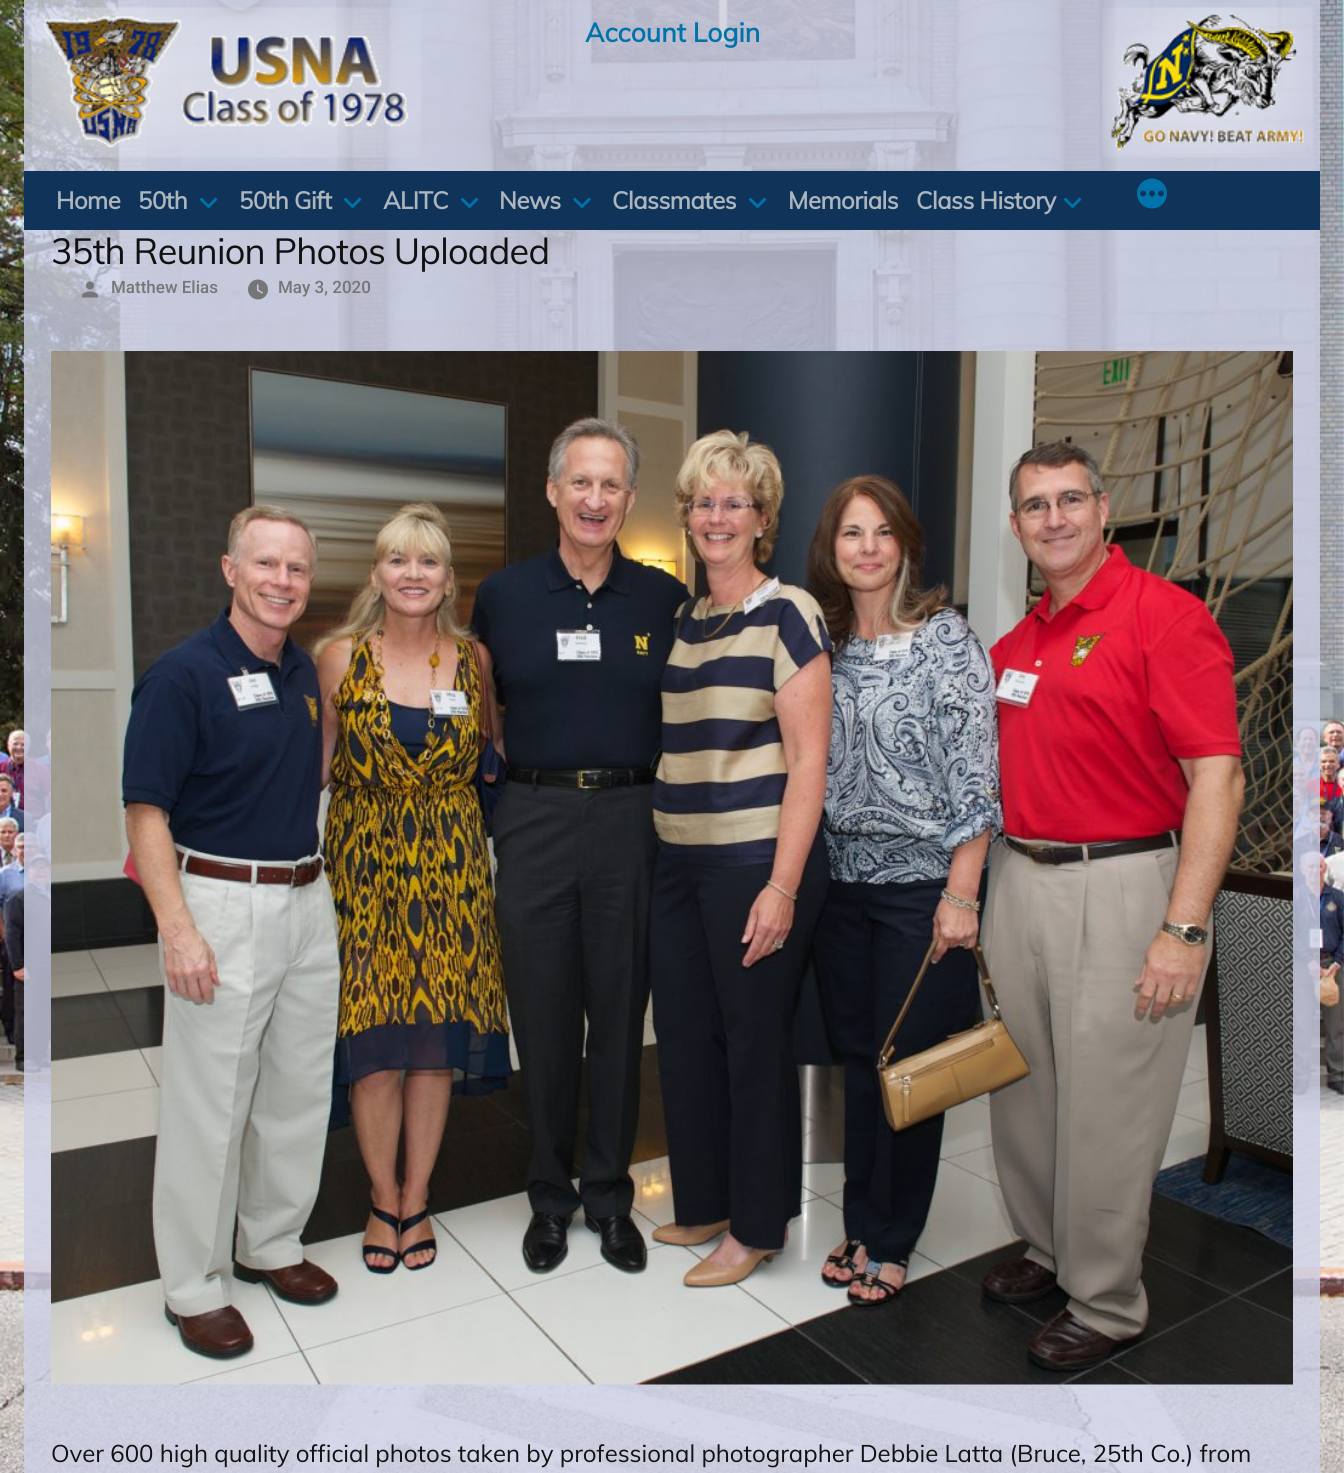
#include <cairo/cairo.h>
#include <math.h>
#include <stddef.h>

static cairo_t *cr;

static void use_color(int r, int g, int b) {
  cairo_set_source_rgb(cr, r / 255.0, g / 255.0, b / 255.0);
}

static void text(double x, double y, const char *s, const char *family, double size, int italic, int bold, int r, int g, int b) {
  cairo_select_font_face(cr, family, italic ? CAIRO_FONT_SLANT_ITALIC : CAIRO_FONT_SLANT_NORMAL,
    bold ? CAIRO_FONT_WEIGHT_BOLD : CAIRO_FONT_WEIGHT_NORMAL);
  cairo_set_font_size(cr, size);
  use_color(r, g, b);
  cairo_move_to(cr, x, y);
  cairo_show_text(cr, s);
}

static void spaced_text(double x, double y, const char *s, double letter, double word) {
  cairo_move_to(cr, x, y);
  while (*s) {
    char ch[5] = {0};
    int n = 0;
    do ch[n++] = *s++; while ((*s & 0xC0) == 0x80);
    cairo_show_text(cr, ch);
    cairo_rel_move_to(cr, letter + word * (*ch == ' '), 0);
  }
}

static void box(double x, double y, double w, double h, int r, int g, int b) {
  use_color(r, g, b);
  cairo_rectangle(cr, x, y, w, h);
  cairo_fill(cr);
}

static void picture(const char *path, double x, double y, double w, double h) {
  cairo_surface_t *image = cairo_image_surface_create_from_png(path);
  cairo_save(cr);
  cairo_set_source_surface(cr, image, x, y);
  cairo_rectangle(cr, x, y, w, h);
  cairo_fill(cr);
  cairo_restore(cr);
  cairo_surface_destroy(image);
}

static void draw(void) {
  use_color(255, 255, 255);
  cairo_paint(cr);
  picture("img_01.png", 0, 0, 1344, 1473);
  cairo_set_source_rgba(cr, 0.804, 0.816, 0.902, 0.8);
  cairo_rectangle(cr, 24, 0, 1296, 171);
  cairo_fill(cr);
  picture("img_02.png", 31, 7, 390, 151);
  picture("img_03.png", 1102, 7, 211, 151);
  box(24, 171, 1296, 59, 16, 51, 89);
  use_color(0, 115, 170);
  cairo_new_path(cr);
  cairo_move_to(cr, 201.5, 197.5);
  cairo_line_to(cr, 208.5, 204.5);
  cairo_line_to(cr, 215.5, 197.5);
  cairo_line_to(cr, 217.5, 199.5);
  cairo_line_to(cr, 208.5, 208.5);
  cairo_line_to(cr, 199.5, 199.5);
  cairo_close_path(cr);
  cairo_fill(cr);
  cairo_new_path(cr);
  cairo_move_to(cr, 345.5, 197.5);
  cairo_line_to(cr, 352.5, 204.5);
  cairo_line_to(cr, 359.5, 197.5);
  cairo_line_to(cr, 361.5, 199.5);
  cairo_line_to(cr, 352.5, 208.5);
  cairo_line_to(cr, 343.5, 199.5);
  cairo_close_path(cr);
  cairo_fill(cr);
  cairo_new_path(cr);
  cairo_move_to(cr, 462.5, 197.5);
  cairo_line_to(cr, 469.5, 204.5);
  cairo_line_to(cr, 476.5, 197.5);
  cairo_line_to(cr, 478.5, 199.5);
  cairo_line_to(cr, 469.5, 208.5);
  cairo_line_to(cr, 460.5, 199.5);
  cairo_close_path(cr);
  cairo_fill(cr);
  cairo_new_path(cr);
  cairo_move_to(cr, 575, 197.5);
  cairo_line_to(cr, 582, 204.5);
  cairo_line_to(cr, 589, 197.5);
  cairo_line_to(cr, 591, 199.5);
  cairo_line_to(cr, 582, 208.5);
  cairo_line_to(cr, 573, 199.5);
  cairo_close_path(cr);
  cairo_fill(cr);
  cairo_new_path(cr);
  cairo_move_to(cr, 750.5, 197.5);
  cairo_line_to(cr, 757.5, 204.5);
  cairo_line_to(cr, 764.5, 197.5);
  cairo_line_to(cr, 766.5, 199.5);
  cairo_line_to(cr, 757.5, 208.5);
  cairo_line_to(cr, 748.5, 199.5);
  cairo_close_path(cr);
  cairo_fill(cr);
  cairo_new_path(cr);
  cairo_move_to(cr, 1065.5, 197.5);
  cairo_line_to(cr, 1072.5, 204.5);
  cairo_line_to(cr, 1079.5, 197.5);
  cairo_line_to(cr, 1081.5, 199.5);
  cairo_line_to(cr, 1072.5, 208.5);
  cairo_line_to(cr, 1063.5, 199.5);
  cairo_close_path(cr);
  cairo_fill(cr);
  picture("img_04.png", 1137, 178, 30, 31);
  cairo_set_source_rgba(cr, 0.804, 0.816, 0.902, 0.8);
  cairo_rectangle(cr, 24, 230, 1296, 1243);
  cairo_fill(cr);
  picture("img_05.png", 82, 281, 16, 17);
  picture("img_06.png", 248, 279, 20, 21);
  picture("img_07.png", 51, 351, 1242, 1034);
  text(585, 42, "Account Login", "Muli", 26.5, 0, 1, 0, 115, 170);
  cairo_set_font_size(cr, 24);
  use_color(173, 181, 189);
  spaced_text(56, 209, "Home", -0.5, 0);
  spaced_text(138, 209, "50th", -0.5, 0);
  spaced_text(239, 209, "50th Gift", -0.5, 0);
  spaced_text(383, 209, "ALITC", -0.5, 0);
  spaced_text(499, 209, "News", -0.5, 0);
  spaced_text(612, 209, "Classmates", -0.5, 0);
  spaced_text(788, 209, "Memorials", -0.5, 0);
  spaced_text(916, 209, "Class History", -0.5, 0);
  cairo_select_font_face(cr, "Muli", CAIRO_FONT_SLANT_NORMAL, CAIRO_FONT_WEIGHT_NORMAL);
  cairo_set_font_size(cr, 36);
  use_color(17, 17, 17);
  spaced_text(51, 264, "35th Reunion Photos Uploaded", -0.75, 0);
  text(111, 293, "Matthew Elias", "Roboto Medium", 17, 0, 0, 118, 118, 118);
  text(278, 293, "May 3, 2020", "Roboto Medium", 17, 0, 0, 118, 118, 118);
  text(51, 1462, "Over 600 high quality official photos taken by professional photographer Debbie Latta (Bruce, 25th Co.) from", "Muli", 24, 0, 0, 17, 17, 17);
}

int main(void) {
  cairo_surface_t *surface = cairo_image_surface_create(CAIRO_FORMAT_RGB24, 1344, 1473);
  cr = cairo_create(surface);
  cairo_font_options_t *options = cairo_font_options_create();
  cairo_font_options_set_hint_metrics(options, CAIRO_HINT_METRICS_OFF);
  cairo_font_options_set_hint_style(options, CAIRO_HINT_STYLE_NONE);
  cairo_set_font_options(cr, options);
  cairo_set_miter_limit(cr, 4);
  draw();
  cairo_surface_write_to_png(surface, "out.png");
  cairo_font_options_destroy(options);
  cairo_destroy(cr);
  cairo_surface_destroy(surface);
  return 0;
}
